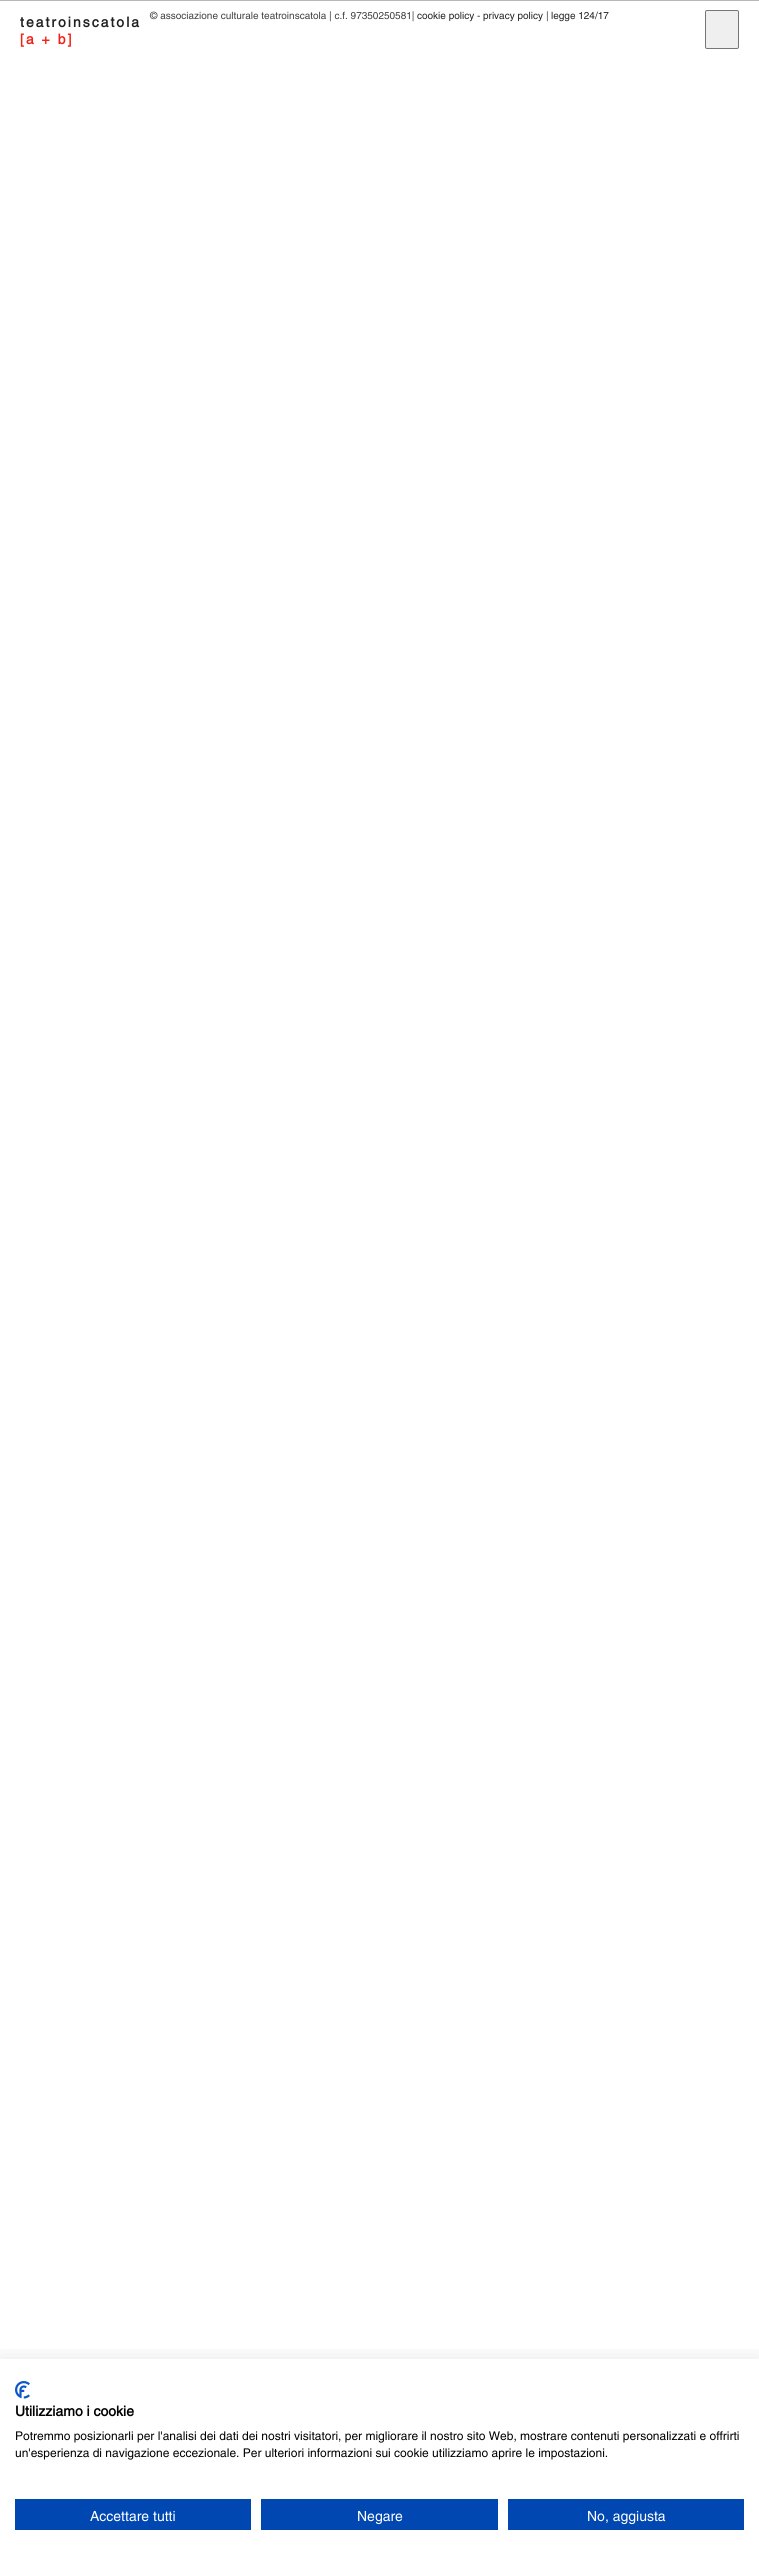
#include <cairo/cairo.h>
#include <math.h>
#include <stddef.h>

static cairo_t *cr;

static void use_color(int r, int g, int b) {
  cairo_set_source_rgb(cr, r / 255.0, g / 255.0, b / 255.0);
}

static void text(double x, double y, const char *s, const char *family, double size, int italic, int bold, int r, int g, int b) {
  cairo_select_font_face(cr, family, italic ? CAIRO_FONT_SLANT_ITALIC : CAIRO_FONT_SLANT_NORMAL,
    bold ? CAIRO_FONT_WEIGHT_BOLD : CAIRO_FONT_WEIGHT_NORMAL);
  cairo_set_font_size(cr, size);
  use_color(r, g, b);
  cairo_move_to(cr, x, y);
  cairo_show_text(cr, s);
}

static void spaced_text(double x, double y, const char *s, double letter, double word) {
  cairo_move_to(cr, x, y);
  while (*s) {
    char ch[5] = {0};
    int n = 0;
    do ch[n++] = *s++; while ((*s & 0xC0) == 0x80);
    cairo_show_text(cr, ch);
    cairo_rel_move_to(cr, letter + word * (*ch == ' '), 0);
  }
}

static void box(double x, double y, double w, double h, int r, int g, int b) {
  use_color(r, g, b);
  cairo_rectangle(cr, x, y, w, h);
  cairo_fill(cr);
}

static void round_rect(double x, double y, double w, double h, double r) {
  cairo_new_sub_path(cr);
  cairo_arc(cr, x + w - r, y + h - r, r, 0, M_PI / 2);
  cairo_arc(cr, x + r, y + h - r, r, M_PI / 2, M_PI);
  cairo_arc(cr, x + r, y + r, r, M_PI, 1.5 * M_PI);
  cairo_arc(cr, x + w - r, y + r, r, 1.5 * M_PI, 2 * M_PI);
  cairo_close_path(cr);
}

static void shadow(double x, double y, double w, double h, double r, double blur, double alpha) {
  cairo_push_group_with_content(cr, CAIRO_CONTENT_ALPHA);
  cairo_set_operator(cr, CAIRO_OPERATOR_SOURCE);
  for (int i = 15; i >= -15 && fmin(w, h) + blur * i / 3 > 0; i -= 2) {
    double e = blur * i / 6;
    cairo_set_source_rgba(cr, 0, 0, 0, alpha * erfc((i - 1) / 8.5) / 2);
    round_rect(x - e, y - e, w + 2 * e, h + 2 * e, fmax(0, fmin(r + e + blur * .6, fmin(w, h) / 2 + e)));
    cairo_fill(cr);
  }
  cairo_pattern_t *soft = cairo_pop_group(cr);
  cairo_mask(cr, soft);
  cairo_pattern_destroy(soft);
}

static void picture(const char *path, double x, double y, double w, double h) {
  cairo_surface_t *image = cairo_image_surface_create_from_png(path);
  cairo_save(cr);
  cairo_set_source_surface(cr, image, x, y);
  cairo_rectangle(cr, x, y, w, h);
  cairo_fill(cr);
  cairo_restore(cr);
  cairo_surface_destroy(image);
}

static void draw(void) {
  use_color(255, 255, 255);
  cairo_paint(cr);
  use_color(239, 239, 239);
  round_rect(705.5, 10.5, 33, 38, 1.5);
  cairo_fill_preserve(cr);
  use_color(118, 118, 118);
  cairo_set_line_width(cr, 1);
  cairo_stroke(cr);
  box(0, 0, 759, 1, 183, 183, 183);
  cairo_save(cr);
  cairo_rectangle(cr, 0, 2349, 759, 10);
  cairo_clip(cr);
  use_color(0, 0, 0);
  shadow(0, 2359, 759, 198, 0, 12, 0.1);
  cairo_restore(cr);
  picture("img_01.png", 15, 2381, 15, 18);
  box(15, 2499, 236, 31, 0, 71, 178);
  box(261, 2499, 237, 31, 0, 71, 178);
  box(508, 2499, 236, 31, 0, 71, 178);
  cairo_select_font_face(cr, "Helvetica", CAIRO_FONT_SLANT_NORMAL, CAIRO_FONT_WEIGHT_BOLD);
  cairo_set_font_size(cr, 14);
  use_color(33, 33, 33);
  spaced_text(20, 27, "teatroinscatola", 2, 0);
  use_color(244, 30, 22);
  spaced_text(20, 44, "[a + b]", 2, 0);
  text(150, 19, "© associazione culturale teatroinscatola | c.f. 97350250581|", "Helvetica", 10, 0, 0, 64, 64, 64);
  text(417, 19, "cookie policy", "Helvetica", 10, 0, 0, 33, 33, 33);
  text(477, 19, "-", "Helvetica", 10, 0, 0, 64, 64, 64);
  text(483, 19, "privacy policy", "Helvetica", 10, 0, 0, 33, 33, 33);
  text(546, 19, "|", "Helvetica", 10, 0, 0, 64, 64, 64);
  text(551, 19, "legge 124/17", "Helvetica", 10, 0, 0, 33, 33, 33);
  text(15, 2416, "Utilizziamo i cookie", "Helvetica", 14, 0, 1, 0, 0, 0);
  text(15, 2440, "Potremmo posizionarli per l'analisi dei dati dei nostri visitatori, per migliorare il nostro sito Web, mostrare contenuti personalizzati e offrirti", "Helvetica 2", 12, 0, 0, 0, 0, 0);
  text(15, 2457, "un'esperienza di navigazione eccezionale. Per ulteriori informazioni sui cookie utilizziamo aprire le impostazioni.", "Helvetica 2", 12, 0, 0, 0, 0, 0);
  text(90, 2521, "Accettare tutti", "Helvetica 2", 14, 0, 0, 255, 255, 255);
  text(357, 2521, "Negare", "Helvetica 2", 14, 0, 0, 255, 255, 255);
  text(587, 2521, "No, aggiusta", "Helvetica 2", 14, 0, 0, 255, 255, 255);
}

int main(void) {
  cairo_surface_t *surface = cairo_image_surface_create(CAIRO_FORMAT_RGB24, 759, 2557);
  cr = cairo_create(surface);
  cairo_font_options_t *options = cairo_font_options_create();
  cairo_font_options_set_hint_metrics(options, CAIRO_HINT_METRICS_OFF);
  cairo_font_options_set_hint_style(options, CAIRO_HINT_STYLE_NONE);
  cairo_set_font_options(cr, options);
  cairo_set_miter_limit(cr, 4);
  draw();
  cairo_surface_write_to_png(surface, "out.png");
  cairo_font_options_destroy(options);
  cairo_destroy(cr);
  cairo_surface_destroy(surface);
  return 0;
}
